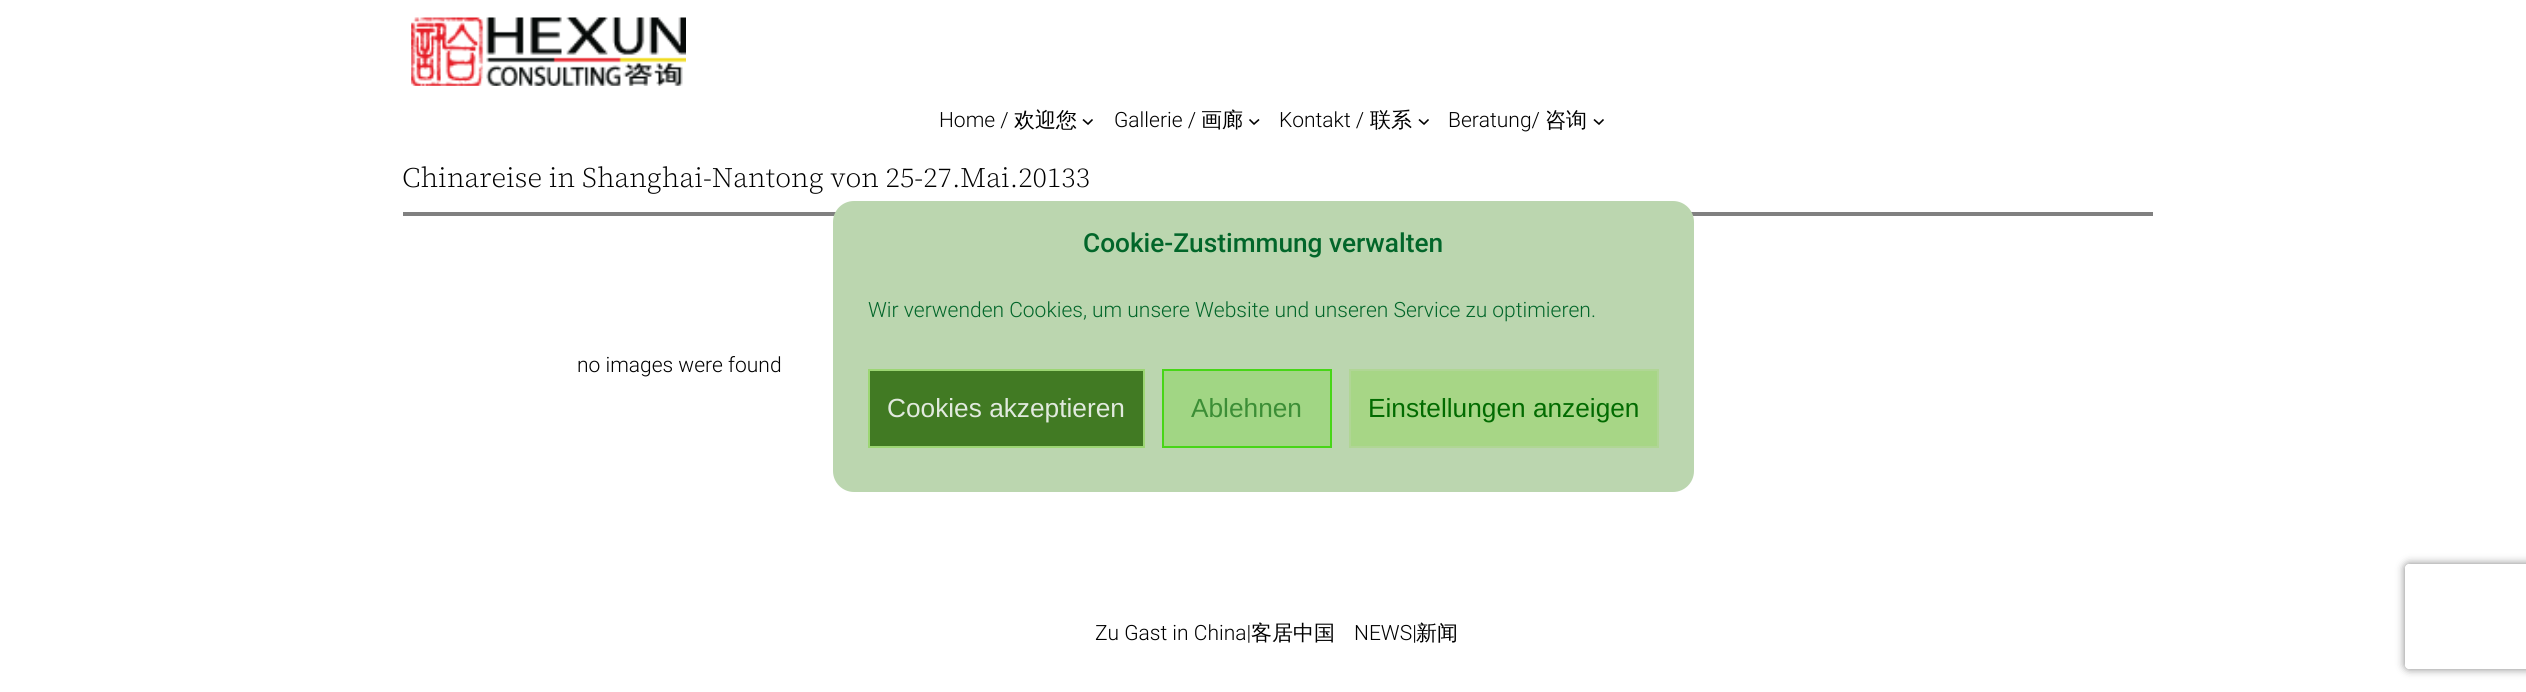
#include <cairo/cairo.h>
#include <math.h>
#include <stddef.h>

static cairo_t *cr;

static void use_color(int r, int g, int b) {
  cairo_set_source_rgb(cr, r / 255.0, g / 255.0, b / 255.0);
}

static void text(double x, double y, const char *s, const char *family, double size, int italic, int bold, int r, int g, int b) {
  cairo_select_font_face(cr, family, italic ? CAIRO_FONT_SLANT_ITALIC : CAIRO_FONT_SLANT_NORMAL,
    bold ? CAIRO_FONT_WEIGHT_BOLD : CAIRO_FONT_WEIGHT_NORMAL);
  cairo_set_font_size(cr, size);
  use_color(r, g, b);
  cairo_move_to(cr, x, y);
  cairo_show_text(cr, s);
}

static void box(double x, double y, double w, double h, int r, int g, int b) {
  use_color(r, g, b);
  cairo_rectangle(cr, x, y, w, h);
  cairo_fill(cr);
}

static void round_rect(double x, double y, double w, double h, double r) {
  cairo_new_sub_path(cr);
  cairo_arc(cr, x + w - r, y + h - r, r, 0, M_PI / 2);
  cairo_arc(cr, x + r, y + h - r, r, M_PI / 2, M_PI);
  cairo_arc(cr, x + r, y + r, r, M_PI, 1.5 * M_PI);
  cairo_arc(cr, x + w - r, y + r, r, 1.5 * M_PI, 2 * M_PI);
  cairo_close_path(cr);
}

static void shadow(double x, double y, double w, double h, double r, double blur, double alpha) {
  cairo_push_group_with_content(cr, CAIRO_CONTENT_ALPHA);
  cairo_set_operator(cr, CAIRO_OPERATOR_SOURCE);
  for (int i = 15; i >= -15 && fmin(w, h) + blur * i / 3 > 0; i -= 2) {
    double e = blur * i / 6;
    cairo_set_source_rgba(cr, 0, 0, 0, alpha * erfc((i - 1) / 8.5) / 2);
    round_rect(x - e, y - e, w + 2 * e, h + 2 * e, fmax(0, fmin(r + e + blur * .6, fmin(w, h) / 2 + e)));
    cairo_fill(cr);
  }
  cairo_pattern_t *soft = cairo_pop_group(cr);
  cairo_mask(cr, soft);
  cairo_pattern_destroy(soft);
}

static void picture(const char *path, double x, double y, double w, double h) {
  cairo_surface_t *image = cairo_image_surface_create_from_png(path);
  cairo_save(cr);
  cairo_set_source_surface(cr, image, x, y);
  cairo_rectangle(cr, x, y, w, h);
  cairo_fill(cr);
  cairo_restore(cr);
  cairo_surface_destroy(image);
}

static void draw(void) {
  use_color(255, 255, 255);
  cairo_paint(cr);
  picture("img_01.png", 411, 17, 275, 69);
  cairo_new_path(cr);
  cairo_move_to(cr, 1083, 119.5);
  cairo_line_to(cr, 1088, 124);
  cairo_line_to(cr, 1092.5, 119.5);
  use_color(0, 0, 0);
  cairo_set_line_width(cr, 1.6);
  cairo_stroke(cr);
  cairo_new_path(cr);
  cairo_move_to(cr, 1249.5, 119.5);
  cairo_line_to(cr, 1254, 124);
  cairo_line_to(cr, 1259, 119.5);
  cairo_stroke(cr);
  cairo_new_path(cr);
  cairo_move_to(cr, 1419, 119.5);
  cairo_line_to(cr, 1424, 124);
  cairo_line_to(cr, 1428.5, 119.5);
  cairo_stroke(cr);
  cairo_new_path(cr);
  cairo_move_to(cr, 1594, 119.5);
  cairo_line_to(cr, 1599, 124);
  cairo_line_to(cr, 1603.5, 119.5);
  cairo_stroke(cr);
  box(403, 212, 1750, 4, 128, 128, 128);
  use_color(187, 214, 175);
  round_rect(833, 201, 861, 291, 21);
  cairo_fill(cr);
  use_color(65, 122, 35);
  cairo_rectangle(cr, 869, 370, 275, 77);
  cairo_fill_preserve(cr);
  use_color(156, 214, 115);
  cairo_set_line_width(cr, 2);
  cairo_stroke(cr);
  use_color(161, 214, 132);
  cairo_rectangle(cr, 1163, 370, 168, 77);
  cairo_fill_preserve(cr);
  use_color(71, 214, 23);
  cairo_stroke(cr);
  use_color(167, 214, 134);
  cairo_rectangle(cr, 1350, 370, 308, 77);
  cairo_fill_preserve(cr);
  use_color(176, 214, 149);
  cairo_stroke(cr);
  cairo_save(cr);
  cairo_set_fill_rule(cr, CAIRO_FILL_RULE_EVEN_ODD);
  cairo_new_path(cr);
  cairo_move_to(cr, 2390, 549);
  cairo_line_to(cr, 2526, 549);
  cairo_line_to(cr, 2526, 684);
  cairo_line_to(cr, 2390, 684);
  cairo_close_path(cr);
  cairo_move_to(cr, 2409, 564);
  cairo_line_to(cr, 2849, 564);
  cairo_curve_to(cr, 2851, 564, 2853, 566, 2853, 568);
  cairo_line_to(cr, 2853, 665);
  cairo_curve_to(cr, 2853, 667, 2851, 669, 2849, 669);
  cairo_line_to(cr, 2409, 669);
  cairo_curve_to(cr, 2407, 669, 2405, 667, 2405, 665);
  cairo_line_to(cr, 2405, 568);
  cairo_curve_to(cr, 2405, 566, 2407, 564, 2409, 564);
  cairo_close_path(cr);
  cairo_clip(cr);
  use_color(128, 128, 128);
  shadow(2405, 564, 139, 105, 4, 4.5, 1);
  cairo_restore(cr);
  text(939, 127, "Home /", "Roboto Light", 21, 0, 0, 0, 0, 0);
  text(1014, 127, "欢迎您", "WenQuanYi Zen Hei Medium", 21, 0, 0, 0, 0, 0);
  text(1114, 127, "Gallerie /", "Roboto Light", 21, 0, 0, 0, 0, 0);
  text(1201, 127, "画廊", "WenQuanYi Zen Hei Medium", 21, 0, 0, 0, 0, 0);
  text(1279, 127, "Kontakt /", "Roboto Light", 21, 0, 0, 0, 0, 0);
  text(1370, 127, "联系", "WenQuanYi Zen Hei Medium", 21, 0, 0, 0, 0, 0);
  text(1448, 127, "Beratung/", "Roboto Light", 21, 0, 0, 0, 0, 0);
  text(1545, 127, "咨询", "WenQuanYi Zen Hei Medium", 21, 0, 0, 0, 0, 0);
  text(402, 187, "Chinareise in Shanghai-Nantong von 25-27.Mai.20133", "Source Serif 4 Light", 28, 0, 0, 0, 0, 0);
  text(577, 372, "no images were found", "Roboto Light", 21, 0, 0, 0, 0, 0);
  text(1095, 640, "Zu Gast in China|", "Roboto Light", 21, 0, 0, 0, 0, 0);
  text(1251, 640, "客居中国", "WenQuanYi Zen Hei Medium", 21, 0, 0, 0, 0, 0);
  text(1354, 640, "NEWS|", "Roboto Light", 21, 0, 0, 0, 0, 0);
  text(1416, 640, "新闻", "WenQuanYi Zen Hei Medium", 21, 0, 0, 0, 0, 0);
  text(1083, 252, "Cookie-Zustimmung verwalten", "Roboto Medium", 26.25, 0, 0, 2, 102, 42);
  text(868, 317, "Wir verwenden Cookies, um unsere Website und unseren Service zu optimieren.", "Roboto Light", 21, 0, 0, 2, 102, 42);
  text(887, 417, "Cookies akzeptieren", "Liberation Sans", 26.25, 0, 0, 225, 234, 222);
  text(1191, 417, "Ablehnen", "Liberation Sans", 26.25, 0, 0, 60, 142, 54);
  text(1368, 417, "Einstellungen anzeigen", "Liberation Sans", 26.25, 0, 0, 2, 107, 1);
}

int main(void) {
  cairo_surface_t *surface = cairo_image_surface_create(CAIRO_FORMAT_RGB24, 2526, 692);
  cr = cairo_create(surface);
  cairo_font_options_t *options = cairo_font_options_create();
  cairo_font_options_set_hint_metrics(options, CAIRO_HINT_METRICS_OFF);
  cairo_font_options_set_hint_style(options, CAIRO_HINT_STYLE_NONE);
  cairo_set_font_options(cr, options);
  cairo_set_miter_limit(cr, 4);
  draw();
  cairo_surface_write_to_png(surface, "out.png");
  cairo_font_options_destroy(options);
  cairo_destroy(cr);
  cairo_surface_destroy(surface);
  return 0;
}
